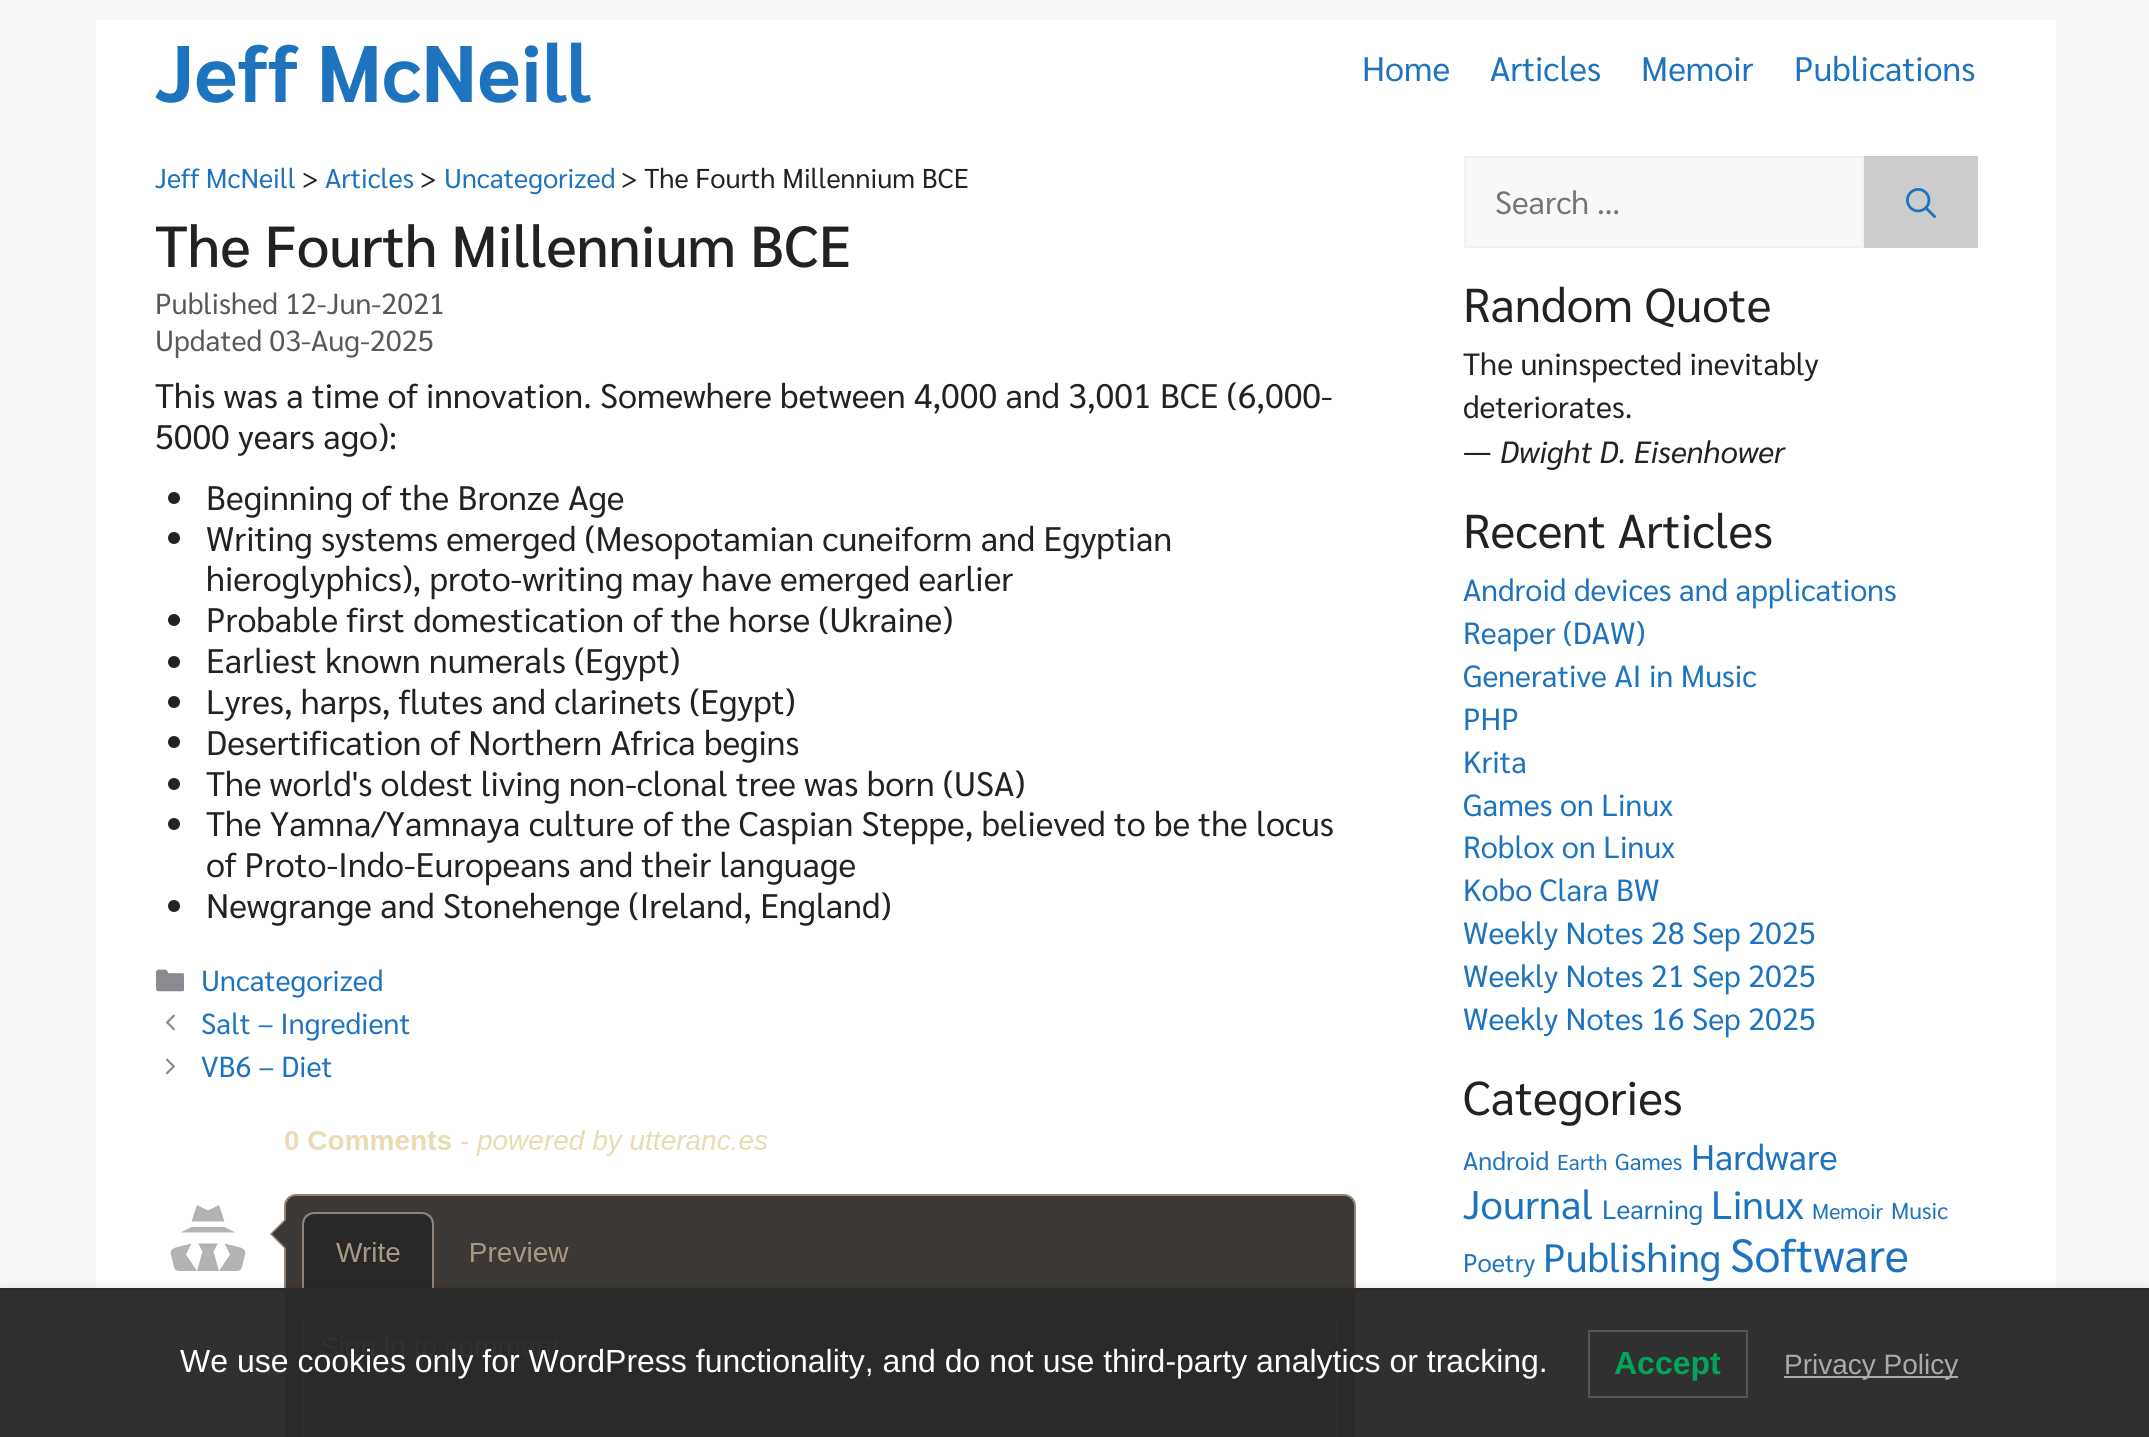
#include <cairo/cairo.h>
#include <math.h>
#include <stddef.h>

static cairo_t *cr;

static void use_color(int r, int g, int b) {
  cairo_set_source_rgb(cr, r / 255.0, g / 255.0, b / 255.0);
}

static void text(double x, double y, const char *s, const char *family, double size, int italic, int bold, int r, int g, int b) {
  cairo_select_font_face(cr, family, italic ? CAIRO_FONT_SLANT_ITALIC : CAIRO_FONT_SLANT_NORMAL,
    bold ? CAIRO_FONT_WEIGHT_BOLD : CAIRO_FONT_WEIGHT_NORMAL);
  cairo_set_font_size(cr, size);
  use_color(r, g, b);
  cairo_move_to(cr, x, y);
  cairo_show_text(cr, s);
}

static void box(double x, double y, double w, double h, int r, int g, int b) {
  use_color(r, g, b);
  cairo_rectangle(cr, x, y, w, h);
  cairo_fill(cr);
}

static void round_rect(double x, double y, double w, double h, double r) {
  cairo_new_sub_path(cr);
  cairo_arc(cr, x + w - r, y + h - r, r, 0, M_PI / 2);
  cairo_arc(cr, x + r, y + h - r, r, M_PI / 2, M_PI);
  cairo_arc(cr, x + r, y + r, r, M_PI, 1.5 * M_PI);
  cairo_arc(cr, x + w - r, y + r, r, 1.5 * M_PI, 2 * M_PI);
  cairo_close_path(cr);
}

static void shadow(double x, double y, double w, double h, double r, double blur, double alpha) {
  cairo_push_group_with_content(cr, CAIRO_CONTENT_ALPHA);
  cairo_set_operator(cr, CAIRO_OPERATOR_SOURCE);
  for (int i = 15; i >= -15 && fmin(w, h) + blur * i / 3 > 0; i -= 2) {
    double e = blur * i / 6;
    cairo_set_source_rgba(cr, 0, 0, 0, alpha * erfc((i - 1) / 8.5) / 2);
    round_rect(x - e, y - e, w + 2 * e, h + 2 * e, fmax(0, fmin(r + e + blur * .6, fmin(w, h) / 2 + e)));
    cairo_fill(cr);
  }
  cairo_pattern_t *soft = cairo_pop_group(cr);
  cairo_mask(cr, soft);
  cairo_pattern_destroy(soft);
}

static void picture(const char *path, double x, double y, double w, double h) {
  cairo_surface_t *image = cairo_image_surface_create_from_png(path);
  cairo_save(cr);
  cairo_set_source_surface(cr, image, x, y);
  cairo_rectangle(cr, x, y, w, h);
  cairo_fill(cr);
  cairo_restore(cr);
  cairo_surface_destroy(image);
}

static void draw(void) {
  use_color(247, 248, 249);
  cairo_paint(cr);
  box(96, 20, 1960, 1417, 255, 255, 255);
  use_color(34, 34, 34);
  cairo_arc(cr, 174, 498, 6, 0, 2 * M_PI);
  cairo_fill(cr);
  cairo_arc(cr, 174, 538, 6, 0, 2 * M_PI);
  cairo_fill(cr);
  cairo_arc(cr, 174, 620, 6, 0, 2 * M_PI);
  cairo_fill(cr);
  cairo_arc(cr, 174, 662, 6, 0, 2 * M_PI);
  cairo_fill(cr);
  cairo_arc(cr, 174, 702, 6, 0, 2 * M_PI);
  cairo_fill(cr);
  cairo_arc(cr, 174, 742, 6, 0, 2 * M_PI);
  cairo_fill(cr);
  cairo_arc(cr, 174, 784, 6, 0, 2 * M_PI);
  cairo_fill(cr);
  cairo_arc(cr, 174, 824, 6, 0, 2 * M_PI);
  cairo_fill(cr);
  cairo_arc(cr, 174, 906, 6, 0, 2 * M_PI);
  cairo_fill(cr);
  picture("img_01.png", 156, 969, 28, 23);
  picture("img_02.png", 165, 1014, 10, 17);
  picture("img_03.png", 165, 1058, 10, 17);
  picture("img_04.png", 170, 1130, 1186, 307);
  use_color(247, 248, 249);
  cairo_rectangle(cr, 1465, 157, 398, 90);
  cairo_fill_preserve(cr);
  use_color(240, 240, 240);
  cairo_stroke(cr);
  box(1864, 156, 114, 92, 204, 204, 204);
  picture("img_05.png", 1906, 188, 30, 30);
  cairo_save(cr);
  cairo_rectangle(cr, 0, 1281, 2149, 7);
  cairo_clip(cr);
  use_color(0, 0, 0);
  shadow(0, 1288, 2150, 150, 0, 8, 0.1);
  cairo_restore(cr);
  cairo_set_source_rgba(cr, 0.169, 0.169, 0.169, 0.97);
  cairo_rectangle(cr, 0, 1290, 2149, 147);
  cairo_fill(cr);
  box(0, 1288, 2149, 2, 43, 43, 43);
  cairo_rectangle(cr, 1589, 1331, 158, 66);
  use_color(85, 85, 85);
  cairo_stroke(cr);
  box(1784, 1376, 174, 2, 170, 170, 170);
  text(155, 102, "Jeff McNeill", "Sarabun", 80, 0, 1, 30, 115, 190);
  text(1362, 81, "Home", "Sarabun", 34, 0, 0, 30, 115, 190);
  text(1490, 81, "Articles", "Sarabun", 34, 0, 0, 30, 115, 190);
  text(1641, 81, "Memoir", "Sarabun", 34, 0, 0, 30, 115, 190);
  text(1794, 81, "Publications", "Sarabun", 34, 0, 0, 30, 115, 190);
  text(155, 188, "Jeff McNeill", "Sarabun", 27.25, 0, 0, 30, 115, 190);
  text(302, 188, ">", "Sarabun", 27.25, 0, 0, 34, 34, 34);
  text(325, 188, "Articles", "Sarabun", 27.25, 0, 0, 30, 115, 190);
  text(420, 188, ">", "Sarabun", 27.25, 0, 0, 34, 34, 34);
  text(444, 188, "Uncategorized", "Sarabun", 27.25, 0, 0, 30, 115, 190);
  text(621, 188, "> The Fourth Millennium BCE", "Sarabun", 27.25, 0, 0, 34, 34, 34);
  text(155, 267, "The Fourth Millennium BCE", "Sarabun Medium", 57.75, 0, 0, 34, 34, 34);
  text(155, 314, "Published 12-Jun-2021", "Sarabun", 29, 0, 0, 87, 87, 96);
  text(155, 351, "Updated 03-Aug-2025", "Sarabun", 29, 0, 0, 89, 89, 89);
  text(155, 408, "This was a time of innovation. Somewhere between 4,000 and 3,001 BCE (6,000-", "Sarabun", 34, 0, 0, 34, 34, 34);
  text(155, 449, "5000 years ago):", "Sarabun", 34, 0, 0, 34, 34, 34);
  text(206, 510, "Beginning of the Bronze Age", "Sarabun", 34, 0, 0, 34, 34, 34);
  text(206, 551, "Writing systems emerged (Mesopotamian cuneiform and Egyptian", "Sarabun", 34, 0, 0, 34, 34, 34);
  text(206, 591, "hieroglyphics), proto-writing may have emerged earlier", "Sarabun", 34, 0, 0, 34, 34, 34);
  text(206, 632, "Probable first domestication of the horse (Ukraine)", "Sarabun", 34, 0, 0, 34, 34, 34);
  text(206, 673, "Earliest known numerals (Egypt)", "Sarabun", 34, 0, 0, 34, 34, 34);
  text(206, 714, "Lyres, harps, flutes and clarinets (Egypt)", "Sarabun", 34, 0, 0, 34, 34, 34);
  text(206, 755, "Desertification of Northern Africa begins", "Sarabun", 34, 0, 0, 34, 34, 34);
  text(206, 796, "The world's oldest living non-clonal tree was born (USA)", "Sarabun", 34, 0, 0, 34, 34, 34);
  text(206, 836, "The Yamna/Yamnaya culture of the Caspian Steppe, believed to be the locus", "Sarabun", 34, 0, 0, 34, 34, 34);
  text(206, 877, "of Proto-Indo-Europeans and their language", "Sarabun", 34, 0, 0, 34, 34, 34);
  text(206, 918, "Newgrange and Stonehenge (Ireland, England)", "Sarabun", 34, 0, 0, 34, 34, 34);
  text(201, 991, "Uncategorized", "Sarabun", 29, 0, 0, 30, 115, 190);
  text(201, 1034, "Salt – Ingredient", "Sarabun", 29, 0, 0, 30, 115, 190);
  text(201, 1077, "VB6 – Diet", "Sarabun", 29, 0, 0, 30, 115, 190);
  text(1495, 214, "Search …", "Sarabun", 32, 0, 0, 117, 117, 117);
  text(1463, 322, "Random Quote", "Sarabun", 47.5, 0, 0, 34, 34, 34);
  text(1463, 375, "The uninspected inevitably", "Sarabun", 30.6, 0, 0, 34, 34, 34);
  text(1463, 418, "deteriorates.", "Sarabun", 30.6, 0, 0, 34, 34, 34);
  text(1463, 463, "—", "Sarabun", 34, 0, 0, 34, 34, 34);
  text(1500, 463, "Dwight D. Eisenhower", "Sarabun", 30.6, 1, 0, 34, 34, 34);
  text(1463, 548, "Recent Articles", "Sarabun", 47.5, 0, 0, 34, 34, 34);
  text(1463, 601, "Android devices and applications", "Sarabun", 30.6, 0, 0, 30, 115, 190);
  text(1463, 644, "Reaper (DAW)", "Sarabun", 30.6, 0, 0, 30, 115, 190);
  text(1463, 687, "Generative AI in Music", "Sarabun", 30.6, 0, 0, 30, 115, 190);
  text(1463, 730, "PHP", "Sarabun", 30.6, 0, 0, 30, 115, 190);
  text(1463, 773, "Krita", "Sarabun", 30.6, 0, 0, 30, 115, 190);
  text(1463, 816, "Games on Linux", "Sarabun", 30.6, 0, 0, 30, 115, 190);
  text(1463, 858, "Roblox on Linux", "Sarabun", 30.6, 0, 0, 30, 115, 190);
  text(1463, 901, "Kobo Clara BW", "Sarabun", 30.6, 0, 0, 30, 115, 190);
  text(1463, 944, "Weekly Notes 28 Sep 2025", "Sarabun", 30.6, 0, 0, 30, 115, 190);
  text(1463, 987, "Weekly Notes 21 Sep 2025", "Sarabun", 30.6, 0, 0, 30, 115, 190);
  text(1463, 1030, "Weekly Notes 16 Sep 2025", "Sarabun", 30.6, 0, 0, 30, 115, 190);
  text(1463, 1115, "Categories", "Sarabun", 47.5, 0, 0, 34, 34, 34);
  text(1463, 1170, "Android", "Sarabun", 25.5, 0, 0, 30, 115, 190);
  text(1557, 1170, "Earth", "Sarabun", 21.5, 0, 0, 30, 115, 190);
  text(1615, 1170, "Games", "Sarabun", 23, 0, 0, 30, 115, 190);
  text(1691, 1170, "Hardware", "Sarabun", 35.5, 0, 0, 30, 115, 190);
  text(1463, 1219, "Journal", "Sarabun", 40, 0, 0, 30, 115, 190);
  text(1602, 1219, "Learning", "Sarabun", 26.5, 0, 0, 30, 115, 190);
  text(1711, 1219, "Linux", "Sarabun", 39.5, 0, 0, 30, 115, 190);
  text(1812, 1219, "Memoir", "Sarabun", 21.5, 0, 0, 30, 115, 190);
  text(1891, 1219, "Music", "Sarabun", 23, 0, 0, 30, 115, 190);
  text(1463, 1272, "Poetry", "Sarabun", 25.5, 0, 0, 30, 115, 190);
  text(1543, 1272, "Publishing", "Sarabun", 39.5, 0, 0, 30, 115, 190);
  text(1730, 1272, "Software", "Sarabun", 46.5, 0, 0, 30, 115, 190);
  text(180, 1372, "We use cookies only for WordPress functionality, and do not use third-party analytics or tracking.", "Liberation Sans", 32, 0, 0, 255, 255, 255);
  text(1614, 1374, "Accept", "Liberation Sans", 32, 0, 1, 0, 166, 90);
  text(1784, 1374, "Privacy Policy", "Liberation Sans", 28, 0, 0, 170, 170, 170);
}

int main(void) {
  cairo_surface_t *surface = cairo_image_surface_create(CAIRO_FORMAT_RGB24, 2149, 1437);
  cr = cairo_create(surface);
  cairo_font_options_t *options = cairo_font_options_create();
  cairo_font_options_set_hint_metrics(options, CAIRO_HINT_METRICS_OFF);
  cairo_font_options_set_hint_style(options, CAIRO_HINT_STYLE_NONE);
  cairo_set_font_options(cr, options);
  cairo_set_miter_limit(cr, 4);
  draw();
  cairo_surface_write_to_png(surface, "out.png");
  cairo_font_options_destroy(options);
  cairo_destroy(cr);
  cairo_surface_destroy(surface);
  return 0;
}
